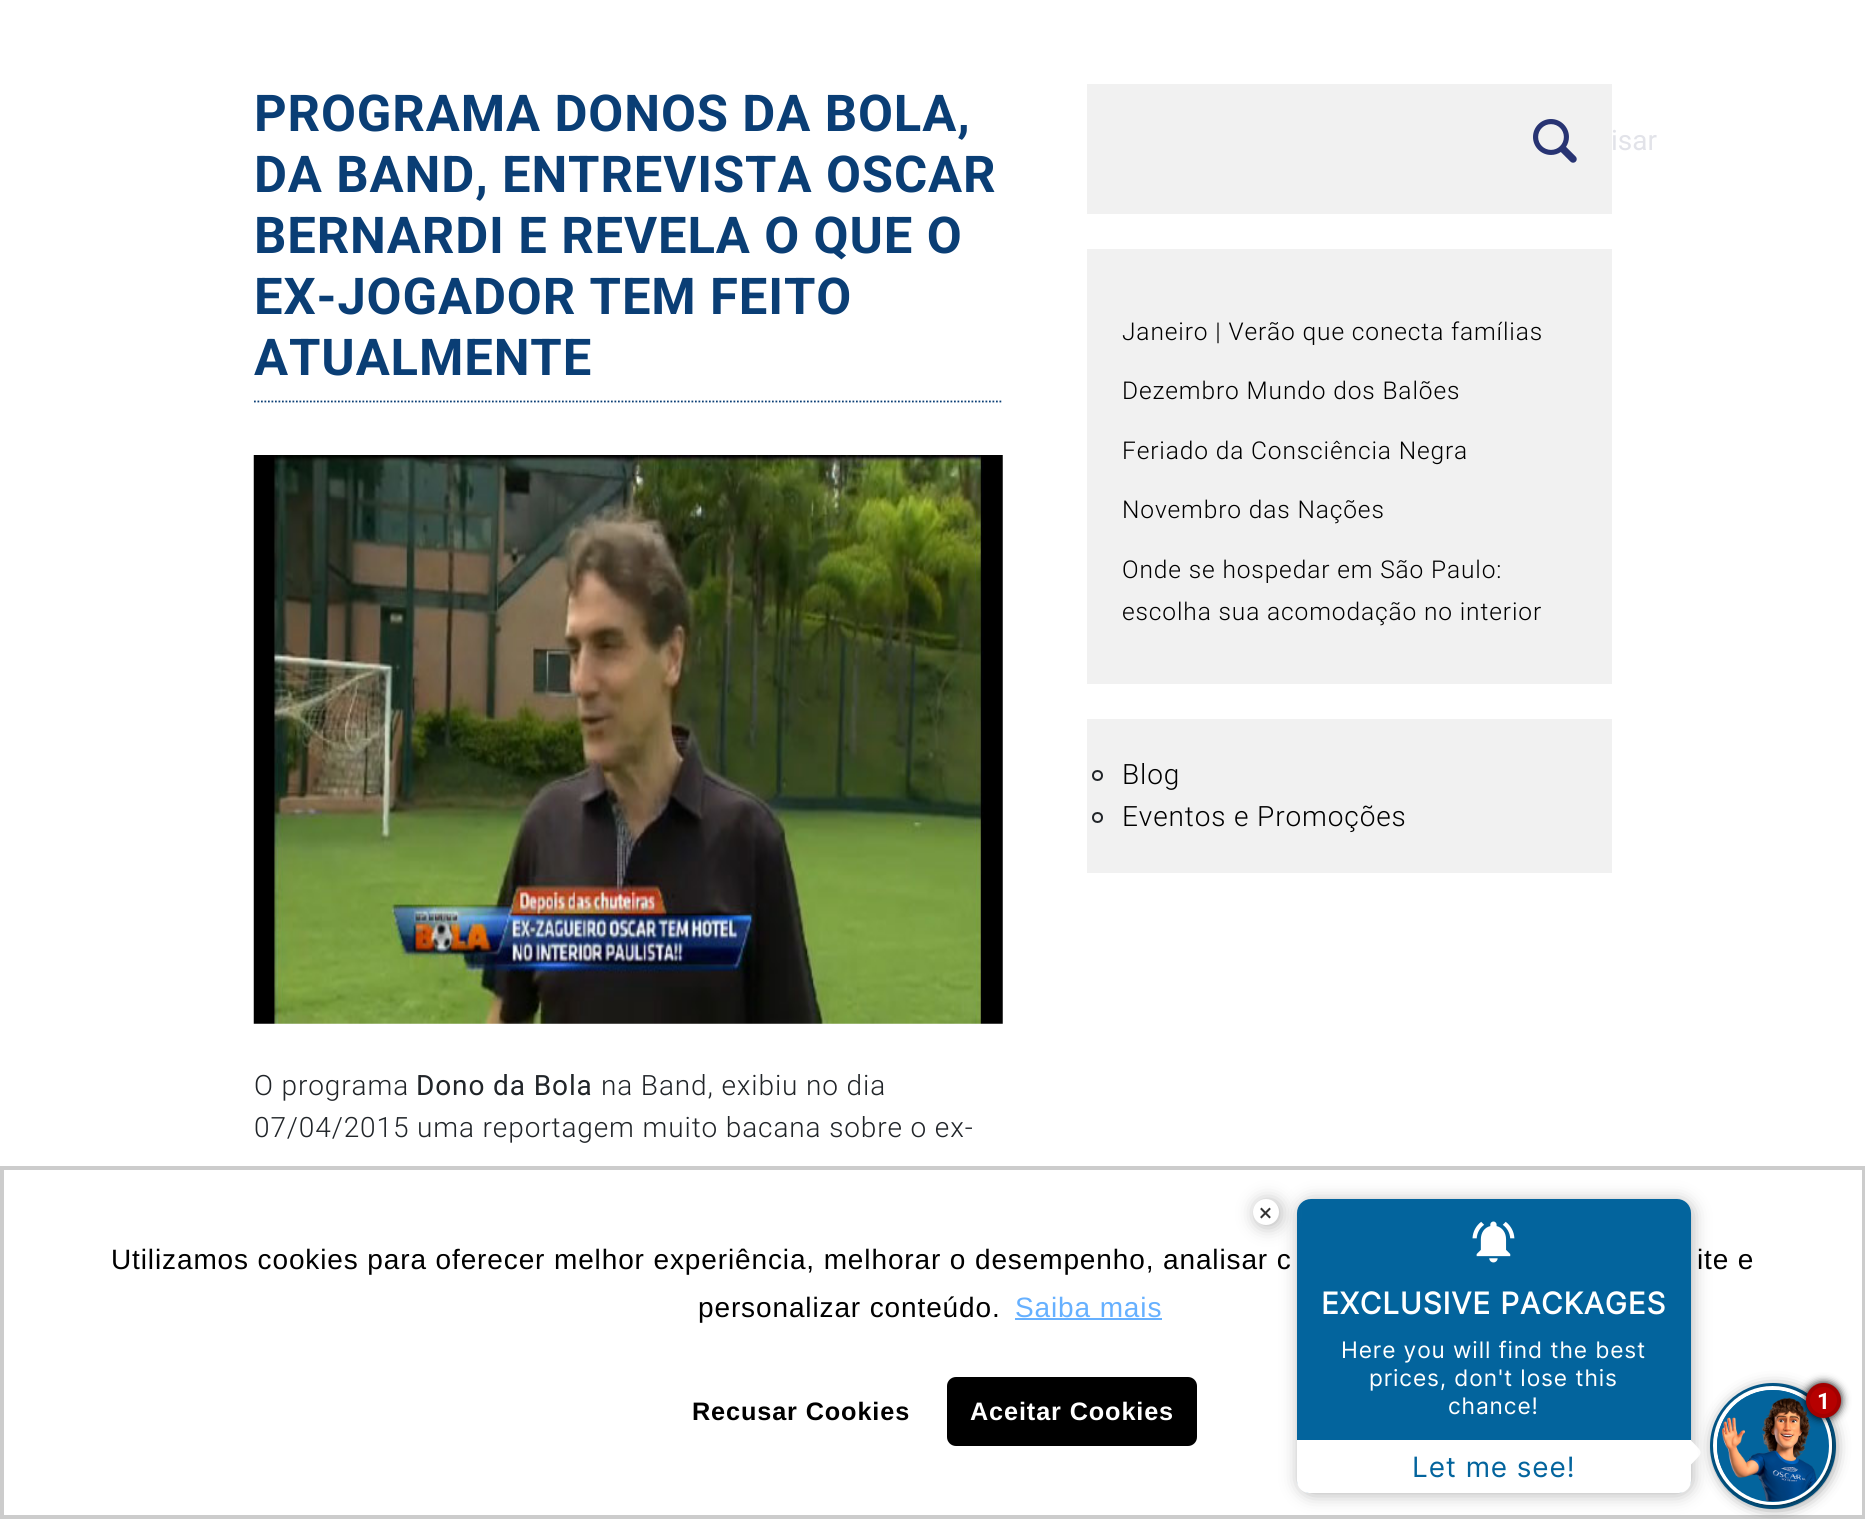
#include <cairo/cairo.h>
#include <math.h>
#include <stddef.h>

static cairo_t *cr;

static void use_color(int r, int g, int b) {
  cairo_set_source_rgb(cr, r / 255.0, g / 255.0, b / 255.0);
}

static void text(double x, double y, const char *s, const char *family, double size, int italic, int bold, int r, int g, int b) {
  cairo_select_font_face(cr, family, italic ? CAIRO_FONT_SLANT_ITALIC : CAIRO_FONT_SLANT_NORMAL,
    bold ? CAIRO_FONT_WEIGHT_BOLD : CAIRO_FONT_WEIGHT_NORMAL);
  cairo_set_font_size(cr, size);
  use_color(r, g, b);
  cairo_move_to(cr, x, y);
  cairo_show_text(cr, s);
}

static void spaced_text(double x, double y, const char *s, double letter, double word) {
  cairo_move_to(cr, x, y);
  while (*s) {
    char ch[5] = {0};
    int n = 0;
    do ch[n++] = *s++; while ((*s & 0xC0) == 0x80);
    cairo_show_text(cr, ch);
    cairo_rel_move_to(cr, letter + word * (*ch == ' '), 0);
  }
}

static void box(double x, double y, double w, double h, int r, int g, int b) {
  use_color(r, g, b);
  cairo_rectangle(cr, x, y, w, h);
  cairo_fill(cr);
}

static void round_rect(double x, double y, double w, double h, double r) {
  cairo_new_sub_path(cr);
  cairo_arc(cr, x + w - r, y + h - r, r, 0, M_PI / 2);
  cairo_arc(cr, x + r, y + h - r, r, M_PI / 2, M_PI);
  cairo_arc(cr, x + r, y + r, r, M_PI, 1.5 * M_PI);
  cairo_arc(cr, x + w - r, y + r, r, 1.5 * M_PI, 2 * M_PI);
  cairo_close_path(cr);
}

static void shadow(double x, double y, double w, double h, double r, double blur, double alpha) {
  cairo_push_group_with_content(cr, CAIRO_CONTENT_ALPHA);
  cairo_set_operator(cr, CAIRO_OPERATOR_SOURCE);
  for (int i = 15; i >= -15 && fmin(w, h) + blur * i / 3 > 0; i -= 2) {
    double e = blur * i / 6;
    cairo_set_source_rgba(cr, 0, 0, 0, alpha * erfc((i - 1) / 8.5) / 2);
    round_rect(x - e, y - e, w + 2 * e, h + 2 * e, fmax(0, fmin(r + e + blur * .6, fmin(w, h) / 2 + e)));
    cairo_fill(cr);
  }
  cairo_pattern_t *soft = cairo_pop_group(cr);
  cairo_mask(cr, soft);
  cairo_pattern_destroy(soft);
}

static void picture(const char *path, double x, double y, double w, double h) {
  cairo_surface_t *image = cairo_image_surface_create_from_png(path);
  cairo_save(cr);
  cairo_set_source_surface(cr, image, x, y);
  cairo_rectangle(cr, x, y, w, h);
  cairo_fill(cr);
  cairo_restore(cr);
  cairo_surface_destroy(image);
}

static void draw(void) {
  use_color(255, 255, 255);
  cairo_paint(cr);
  cairo_new_path(cr);
  cairo_move_to(cr, 254, 401.5);
  cairo_line_to(cr, 1003, 401.5);
  use_color(10, 62, 117);
  cairo_set_line_width(cr, 1.8);
  cairo_set_dash(cr, (double[]){1.75, 1.75}, 2, 0);
  cairo_stroke(cr);
  picture("img_01.png", 253, 455, 750, 569);
  box(1087, 84, 525, 130, 241, 241, 241);
  picture("img_02.png", 1533, 119, 44, 44);
  box(1087, 249, 525, 435, 241, 241, 241);
  box(1087, 719, 525, 154, 241, 241, 241);
  cairo_arc(cr, 1097.5, 775.5, 4.5, 0, 2 * M_PI);
  use_color(33, 37, 41);
  cairo_set_line_width(cr, 2);
  cairo_set_dash(cr, NULL, 0, 0);
  cairo_stroke(cr);
  cairo_arc(cr, 1097.5, 817.5, 4.5, 0, 2 * M_PI);
  cairo_stroke(cr);
  cairo_rectangle(cr, 2, 1168, 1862, 349);
  use_color(204, 204, 204);
  cairo_set_line_width(cr, 4);
  cairo_stroke(cr);
  use_color(170, 170, 170);
  shadow(1300, 1202, 391, 291, 12, 9, 1);
  cairo_arc(cr, 1773, 1446, 61, 0, 2 * M_PI);
  use_color(3, 100, 157);
  cairo_stroke(cr);
  round_rect(1297, 1199, 394, 294, 14);
  cairo_fill(cr);
  use_color(255, 255, 255);
  cairo_new_path(cr);
  cairo_move_to(cr, 1297, 1440);
  cairo_line_to(cr, 1691, 1440);
  cairo_line_to(cr, 1691, 1481);
  cairo_curve_to(cr, 1691, 1487.5, 1685.5, 1493, 1679, 1493);
  cairo_line_to(cr, 1309, 1493);
  cairo_curve_to(cr, 1302.5, 1493, 1297, 1487.5, 1297, 1481);
  cairo_close_path(cr);
  cairo_fill(cr);
  cairo_new_path(cr);
  cairo_move_to(cr, 1690.5, 1440);
  cairo_curve_to(cr, 1704, 1454, 1704, 1451, 1690.5, 1465);
  cairo_line_to(cr, 1678, 1452.5);
  cairo_close_path(cr);
  cairo_fill(cr);
  use_color(0, 0, 0);
  shadow(1720, 1393, 109, 109, 54.5, 9, 1);
  use_color(3, 100, 157);
  cairo_arc(cr, 1772.5, 1445.5, 57.5, 0, 2 * M_PI);
  cairo_fill_preserve(cr);
  use_color(255, 255, 255);
  cairo_stroke(cr);
  use_color(170, 170, 170);
  shadow(1257, 1202, 22, 23, 11, 9, 1);
  use_color(255, 255, 255);
  cairo_arc(cr, 1266, 1212, 13, 0, 2 * M_PI);
  cairo_fill(cr);
  picture("img_03.png", 1472, 1221, 43, 42);
  use_color(3, 100, 157);
  cairo_arc(cr, 1773, 1446, 56, 0, 2 * M_PI);
  cairo_fill(cr);
  picture("img_04.png", 1721, 1397, 96, 105);
  use_color(0, 0, 0);
  shadow(1806, 1383, 35, 35, 17.5, 4.5, 1);
  use_color(182, 0, 0);
  cairo_arc(cr, 1823.5, 1400.5, 15.5, 0, 2 * M_PI);
  cairo_fill_preserve(cr);
  use_color(163, 0, 0);
  cairo_stroke(cr);
  box(1015, 1318, 147, 2, 102, 176, 255);
  use_color(0, 0, 0);
  round_rect(947, 1377, 250, 69, 9);
  cairo_fill(cr);
  cairo_select_font_face(cr, "Roboto", CAIRO_FONT_SLANT_NORMAL, CAIRO_FONT_WEIGHT_BOLD);
  cairo_set_font_size(cr, 50.75);
  use_color(10, 62, 117);
  spaced_text(254, 131, "PROGRAMA DONOS DA BOLA,", 0.88, 0);
  spaced_text(254, 192, "DA BAND, ENTREVISTA OSCAR", 0.88, 0);
  spaced_text(254, 253, "BERNARDI E REVELA O QUE O", 0.88, 0);
  spaced_text(254, 314, "EX-JOGADOR TEM FEITO", 0.88, 0);
  spaced_text(254, 375, "ATUALMENTE", 0.88, 0);
  cairo_select_font_face(cr, "Roboto Light", CAIRO_FONT_SLANT_NORMAL, CAIRO_FONT_WEIGHT_NORMAL);
  cairo_set_font_size(cr, 28);
  use_color(33, 37, 41);
  spaced_text(254, 1095, "O programa", 0.88, 0);
  cairo_select_font_face(cr, "Roboto", CAIRO_FONT_SLANT_NORMAL, CAIRO_FONT_WEIGHT_NORMAL);
  spaced_text(416, 1095, "Dono da Bola", 0.88, 0);
  cairo_select_font_face(cr, "Roboto Light", CAIRO_FONT_SLANT_NORMAL, CAIRO_FONT_WEIGHT_NORMAL);
  spaced_text(601, 1095, "na Band, exibiu no dia", 0.88, 0);
  spaced_text(254, 1137, "07/04/2015 uma reportagem muito bacana sobre o ex-", 0.88, 0);
  text(1611, 150, "isar", "Roboto", 28, 0, 0, 226, 227, 233);
  cairo_select_font_face(cr, "Roboto Light", CAIRO_FONT_SLANT_NORMAL, CAIRO_FONT_WEIGHT_NORMAL);
  cairo_set_font_size(cr, 24.5);
  use_color(0, 0, 0);
  spaced_text(1122, 340, "Janeiro | Verão que conecta famílias", 0.88, 0);
  spaced_text(1122, 399, "Dezembro Mundo dos Balões", 0.88, 0);
  spaced_text(1122, 459, "Feriado da Consciência Negra", 0.88, 0);
  spaced_text(1122, 518, "Novembro das Nações", 0.88, 0);
  spaced_text(1122, 578, "Onde se hospedar em São Paulo:", 0.88, 0);
  spaced_text(1122, 620, "escolha sua acomodação no interior", 0.88, 0);
  cairo_set_font_size(cr, 28);
  spaced_text(1122, 784, "Blog", 0.88, 0);
  spaced_text(1122, 826, "Eventos e Promoções", 0.88, 0);
  cairo_select_font_face(cr, "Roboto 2", CAIRO_FONT_SLANT_NORMAL, CAIRO_FONT_WEIGHT_NORMAL);
  cairo_set_font_size(cr, 24.5);
  use_color(51, 51, 51);
  spaced_text(1259, 1221, "×", 0.88, 0);
  cairo_select_font_face(cr, "Inter", CAIRO_FONT_SLANT_NORMAL, CAIRO_FONT_WEIGHT_BOLD);
  cairo_set_font_size(cr, 29.75);
  use_color(255, 255, 255);
  spaced_text(1321, 1314, "EXCLUSIVE PACKAGES", 0.88, 0);
  cairo_select_font_face(cr, "Inter", CAIRO_FONT_SLANT_NORMAL, CAIRO_FONT_WEIGHT_NORMAL);
  cairo_set_font_size(cr, 22.75);
  spaced_text(1341, 1358, "Here you will find the best", 0.88, 0);
  spaced_text(1369, 1386, "prices, don't lose this", 0.88, 0);
  spaced_text(1448, 1414, "chance!", 0.88, 0);
  cairo_set_font_size(cr, 28);
  use_color(3, 100, 157);
  spaced_text(1412, 1477, "Let me see!", 0.88, 0);
  cairo_select_font_face(cr, "Roboto", CAIRO_FONT_SLANT_NORMAL, CAIRO_FONT_WEIGHT_BOLD);
  cairo_set_font_size(cr, 22.75);
  use_color(255, 255, 255);
  spaced_text(1817, 1409, "1", 0.88, 0);
  cairo_select_font_face(cr, "Liberation Sans", CAIRO_FONT_SLANT_NORMAL, CAIRO_FONT_WEIGHT_NORMAL);
  cairo_set_font_size(cr, 28);
  use_color(0, 0, 0);
  spaced_text(111, 1269, "Utilizamos cookies para oferecer melhor experiência, melhorar o desempenho, analisar c", 0.88, 0);
  spaced_text(1697, 1269, "ite e", 0.88, 0);
  spaced_text(698, 1317, "personalizar conteúdo.", 0.88, 0);
  use_color(102, 176, 255);
  spaced_text(1015, 1317, "Saiba mais", 0.88, 0);
  cairo_select_font_face(cr, "Liberation Sans", CAIRO_FONT_SLANT_NORMAL, CAIRO_FONT_WEIGHT_BOLD);
  cairo_set_font_size(cr, 25.25);
  use_color(0, 0, 0);
  spaced_text(692, 1420, "Recusar Cookies", 0.88, 0);
  use_color(255, 255, 255);
  spaced_text(970, 1420, "Aceitar Cookies", 0.88, 0);
}

int main(void) {
  cairo_surface_t *surface = cairo_image_surface_create(CAIRO_FORMAT_RGB24, 1865, 1519);
  cr = cairo_create(surface);
  cairo_font_options_t *options = cairo_font_options_create();
  cairo_font_options_set_hint_metrics(options, CAIRO_HINT_METRICS_OFF);
  cairo_font_options_set_hint_style(options, CAIRO_HINT_STYLE_NONE);
  cairo_set_font_options(cr, options);
  cairo_set_miter_limit(cr, 4);
  draw();
  cairo_surface_write_to_png(surface, "out.png");
  cairo_font_options_destroy(options);
  cairo_destroy(cr);
  cairo_surface_destroy(surface);
  return 0;
}
